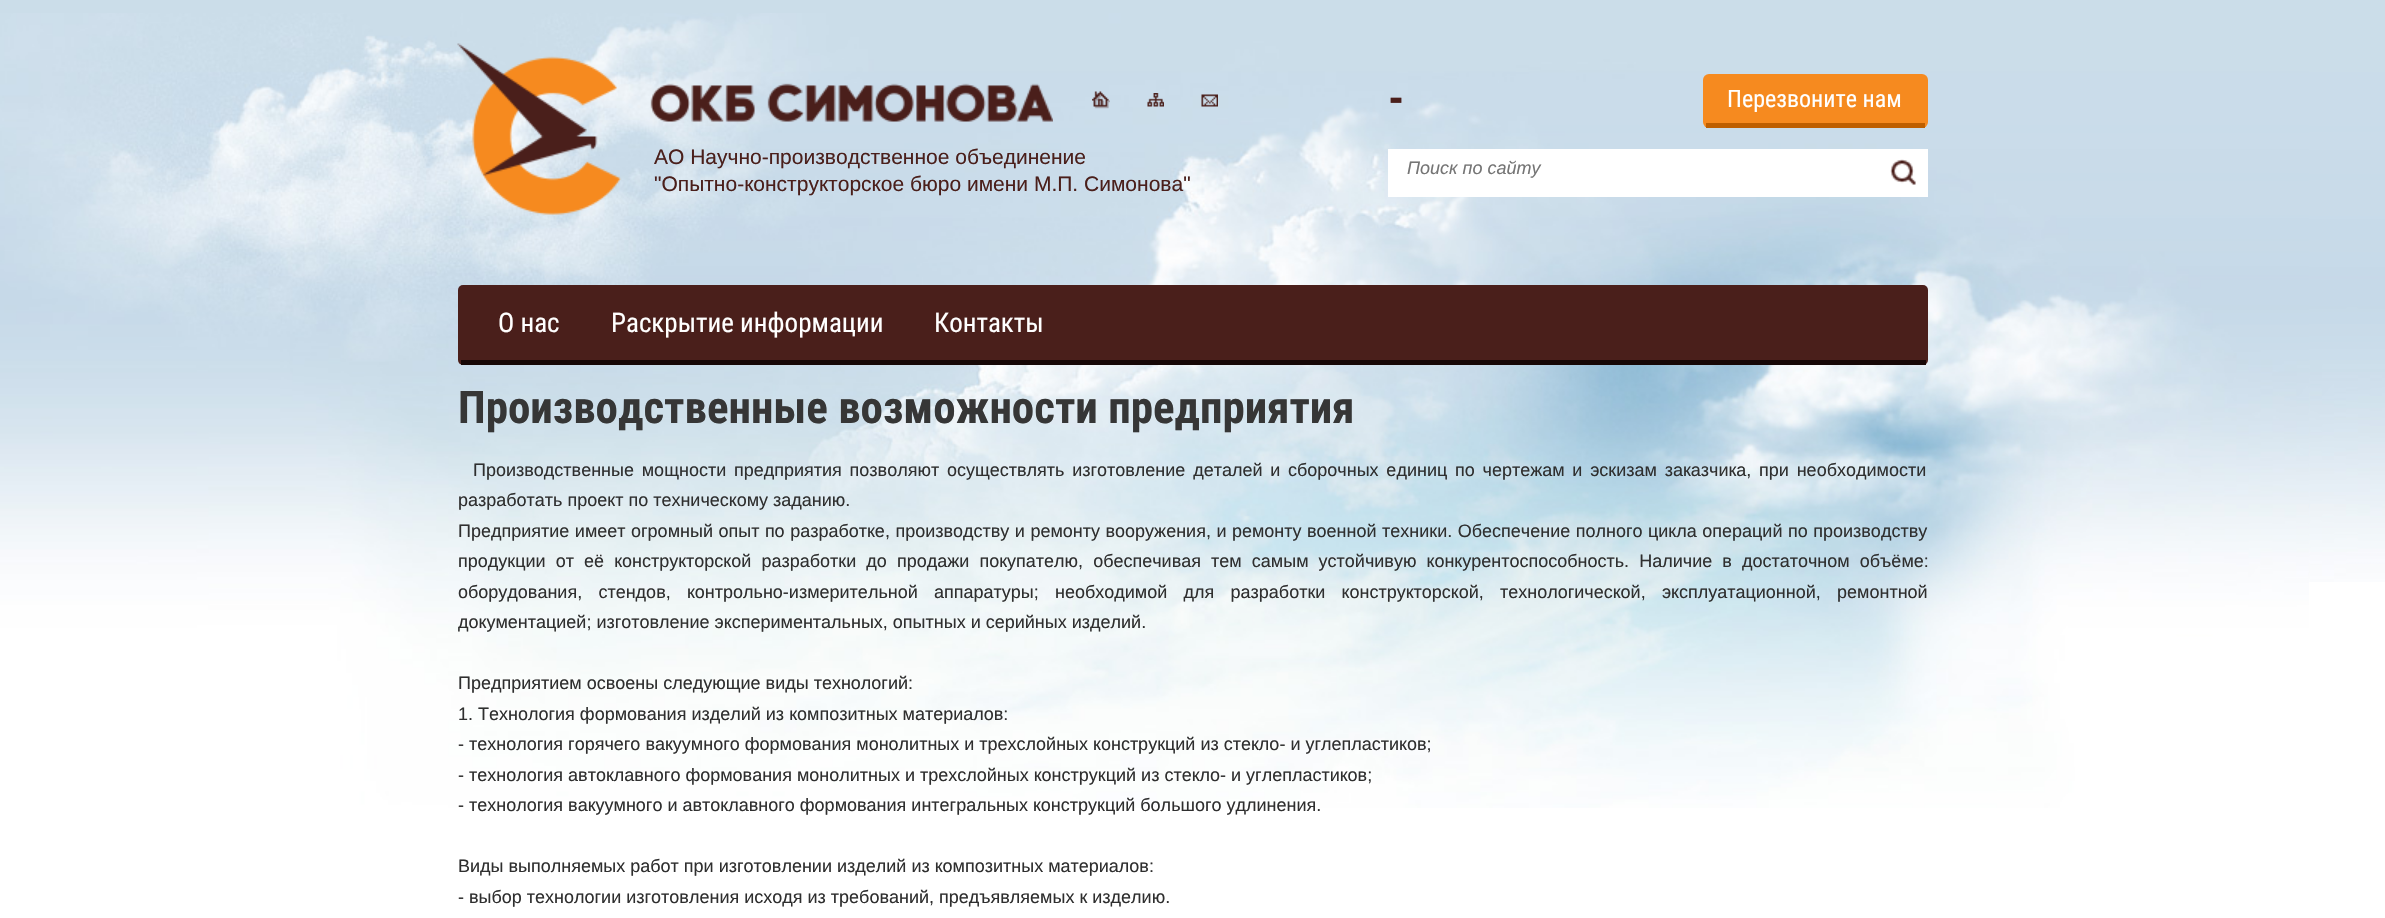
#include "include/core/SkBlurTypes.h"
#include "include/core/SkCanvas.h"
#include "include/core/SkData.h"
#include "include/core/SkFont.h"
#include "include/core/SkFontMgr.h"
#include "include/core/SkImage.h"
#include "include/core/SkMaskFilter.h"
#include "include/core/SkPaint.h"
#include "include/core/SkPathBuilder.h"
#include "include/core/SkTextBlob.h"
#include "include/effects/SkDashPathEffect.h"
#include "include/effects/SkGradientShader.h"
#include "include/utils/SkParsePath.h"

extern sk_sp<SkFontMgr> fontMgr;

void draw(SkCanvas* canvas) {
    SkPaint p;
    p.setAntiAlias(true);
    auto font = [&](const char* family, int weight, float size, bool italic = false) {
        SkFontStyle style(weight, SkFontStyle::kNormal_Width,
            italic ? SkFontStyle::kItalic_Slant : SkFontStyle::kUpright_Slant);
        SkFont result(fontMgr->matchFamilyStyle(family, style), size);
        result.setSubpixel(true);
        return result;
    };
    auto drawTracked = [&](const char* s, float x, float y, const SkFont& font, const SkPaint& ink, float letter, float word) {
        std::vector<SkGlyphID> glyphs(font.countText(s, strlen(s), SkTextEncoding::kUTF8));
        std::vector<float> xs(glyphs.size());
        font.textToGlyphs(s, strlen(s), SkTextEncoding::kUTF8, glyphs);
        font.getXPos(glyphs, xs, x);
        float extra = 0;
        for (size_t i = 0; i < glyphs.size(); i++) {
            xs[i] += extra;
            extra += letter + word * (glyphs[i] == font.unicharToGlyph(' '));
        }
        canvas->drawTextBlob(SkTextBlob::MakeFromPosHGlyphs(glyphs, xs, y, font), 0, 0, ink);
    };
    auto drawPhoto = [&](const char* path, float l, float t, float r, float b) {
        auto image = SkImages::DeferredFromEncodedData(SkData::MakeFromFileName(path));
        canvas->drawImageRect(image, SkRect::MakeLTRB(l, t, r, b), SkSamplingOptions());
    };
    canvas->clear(0xFFFFFFFF);
    drawPhoto("media/1.png", 0, 0, 2385, 582);
    drawPhoto("media/2.png", 0, 13, 2309, 808);
    drawPhoto("media/3.png", 457, 43, 1053, 215);
    drawPhoto("media/4.png", 1092, 91, 1110, 109);
    drawPhoto("media/5.png", 1147, 93, 1164, 107);
    drawPhoto("media/6.png", 1201, 94, 1218, 107);
    auto font1 = font("Roboto Condensed", 700, 45);
    p.setColor(0xFF4A1F1B);
    canvas->drawString("-", 1388, 114, font1, p);
    p.setColor(0xFFF68A1F);
    canvas->drawRoundRect(SkRect::MakeLTRB(1703, 74, 1928, 128), 6, 6, p);
    p.setColor(0xFFBE5F00);
    canvas->drawRect(SkRect::MakeLTRB(1706, 123, 1925, 128), p);
    auto font2 = font("Roboto Condensed", 400, 24);
    p.setColor(0xFFFFFFFF);
    canvas->drawString("Перезвоните нам", 1727, 107, font2, p);
    auto font3 = font("Liberation Sans", 400, 21);
    p.setColor(0xFF4A1F1B);
    canvas->drawString("АО Научно-производственное объединение", 654, 164, font3, p);
    canvas->drawString("\"Опытно-конструкторское бюро имени М.П. Симонова\"", 654, 191, font3, p);
    p.setColor(0xFFFFFFFF);
    canvas->drawRect(SkRect::MakeLTRB(1388, 149, 1928, 197), p);
    auto font4 = font("Liberation Sans", 400, 18, true);
    p.setColor(0xFF757575);
    canvas->drawString("Поиск по сайту", 1407, 174, font4, p);
    drawPhoto("media/7.png", 1890, 159, 1916, 185);
    p.setColor(0xFF4A1F1B);
    canvas->drawRoundRect(SkRect::MakeLTRB(458, 285, 1928, 365), 5, 5, p);
    p.setColor(0xFF160706);
    canvas->drawRect(SkRect::MakeLTRB(461, 360, 1926, 365), p);
    auto font5 = font("Roboto Condensed", 400, 27);
    p.setColor(0xFFFFFFFF);
    {
        const struct { const char* s; float x, y; } items[] = {
            {"О нас", 498, 332},
            {"Раскрытие информации", 611, 332},
            {"Контакты", 934, 332},
        };
        for (auto [s, x, y] : items) {
            canvas->drawString(s, x, y, font5, p);
        }
    }
    p.setColor(0xFF363636);
    canvas->drawString("Производственные возможности предприятия", 458, 423, font1, p);
    auto font6 = font("Liberation Sans", 400, 18);
    p.setColor(0xFF2F2F2F);
    drawTracked("Производственные мощности предприятия позволяют осуществлять изготовление деталей и сборочных единиц по чертежам и эскизам заказчика, при необходимости", 473, 476, font6, p, 0, 2.75f);
    canvas->drawString("разработать проект по техническому заданию.", 458, 506, font6, p);
    drawTracked("Предприятие имеет огромный опыт по разработке, производству и ремонту вооружения, и ремонту военной техники. Обеспечение полного цикла операций по производству", 458, 537, font6, p, 0, 0.5f);
    drawTracked("продукции от её конструкторской разработки до продажи покупателю, обеспечивая тем самым устойчивую конкурентоспособность. Наличие в достаточном объёме:", 458, 567, font6, p, 0, 5.1f);
    drawTracked("оборудования, стендов, контрольно-измерительной аппаратуры; необходимой для разработки конструкторской, технологической, эксплуатационной, ремонтной", 458, 598, font6, p, 0, 11.25f);
    {
        const struct { const char* s; float x, y; } items[] = {
            {"документацией; изготовление экспериментальных, опытных и серийных изделий.", 458, 628},
            {"Предприятием освоены следующие виды технологий:", 458, 689},
            {"1. Технология формования изделий из композитных материалов:", 458, 720},
            {"- технология горячего вакуумного формования монолитных и трехслойных конструкций из стекло- и углепластиков;", 458, 750},
            {"- технология автоклавного формования монолитных и трехслойных конструкций из стекло- и углепластиков;", 458, 781},
            {"- технология вакуумного и автоклавного формования интегральных конструкций большого удлинения.", 458, 811},
            {"Виды выполняемых работ при изготовлении изделий из композитных материалов:", 458, 872},
            {"- выбор технологии изготовления исходя из требований, предъявляемых к изделию.", 458, 903},
        };
        for (auto [s, x, y] : items) {
            canvas->drawString(s, x, y, font6, p);
        }
    }
}
